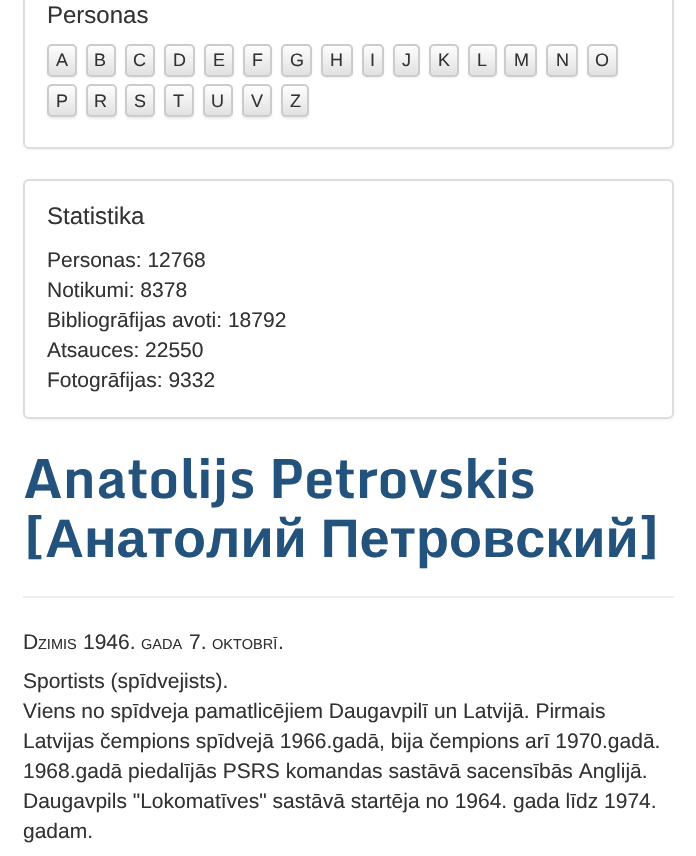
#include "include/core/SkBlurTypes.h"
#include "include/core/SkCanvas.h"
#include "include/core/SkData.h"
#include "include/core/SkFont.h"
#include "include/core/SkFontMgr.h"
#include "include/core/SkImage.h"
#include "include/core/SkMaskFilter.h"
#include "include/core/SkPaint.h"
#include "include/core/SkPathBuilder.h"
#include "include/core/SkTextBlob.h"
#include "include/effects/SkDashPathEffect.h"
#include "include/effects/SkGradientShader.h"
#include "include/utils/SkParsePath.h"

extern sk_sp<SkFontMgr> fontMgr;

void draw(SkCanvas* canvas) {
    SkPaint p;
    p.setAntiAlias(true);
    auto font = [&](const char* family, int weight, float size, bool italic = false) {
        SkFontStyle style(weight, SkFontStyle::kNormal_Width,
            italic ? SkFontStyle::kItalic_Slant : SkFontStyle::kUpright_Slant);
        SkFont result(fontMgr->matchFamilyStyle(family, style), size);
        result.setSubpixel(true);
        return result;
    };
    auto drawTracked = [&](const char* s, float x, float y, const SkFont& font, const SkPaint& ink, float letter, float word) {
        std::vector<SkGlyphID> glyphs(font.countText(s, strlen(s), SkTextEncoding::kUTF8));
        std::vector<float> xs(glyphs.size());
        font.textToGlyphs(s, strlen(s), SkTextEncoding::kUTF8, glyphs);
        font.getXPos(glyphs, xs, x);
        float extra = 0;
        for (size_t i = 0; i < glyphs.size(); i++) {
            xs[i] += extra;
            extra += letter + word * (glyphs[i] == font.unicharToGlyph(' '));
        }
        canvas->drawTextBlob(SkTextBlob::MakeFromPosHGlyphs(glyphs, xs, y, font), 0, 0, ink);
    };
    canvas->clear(0xFFFFFFFF);
    p.setColor(0x0D000000);
    p.setMaskFilter(SkMaskFilter::MakeBlur(kNormal_SkBlurStyle, 1.5f));
    canvas->drawRoundRect(SkRect::MakeLTRB(23, -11, 674, 150), 6, 6, p);
    p.setMaskFilter(nullptr);
    p.setColor(0xFFFFFFFF);
    canvas->drawRoundRect(SkRect::MakeLTRB(24, -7, 673, 148), 5, 5, p);
    p.setStyle(SkPaint::kStroke_Style);
    p.setStrokeWidth(2);
    p.setColor(0xFFDDDDDD);
    canvas->drawRoundRect(SkRect::MakeLTRB(24, -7, 673, 148), 5, 5, p);
    auto font1 = font("Liberation Sans", 400, 24);
    p.setStyle(SkPaint::kFill_Style);
    p.setColor(0xFF333333);
    canvas->drawString("Personas", 47, 23, font1, p);
    p.setColor(0x12000000);
    p.setMaskFilter(SkMaskFilter::MakeBlur(kNormal_SkBlurStyle, 1));
    canvas->drawRoundRect(SkRect::MakeLTRB(47, 45, 77, 78), 5, 5, p);
    p.setMaskFilter(nullptr);
    canvas->save();
    canvas->clipPath(SkPathBuilder().moveTo(52, 44).lineTo(72, 44).cubicTo(75, 44, 77, 46, 77, 49).lineTo(77, 72).cubicTo(77, 75, 75, 77, 72, 77).lineTo(52, 77).cubicTo(49, 77, 47, 75, 47, 72).lineTo(47, 49).cubicTo(47, 46, 49, 44, 52, 44).close().detach(), true);
    {
        const SkColor colors[] = {0xFFFFFFFF, 0xFFE0E0E0};
        const float stops[] = {0, 1};
        const SkPoint ends[] = {{62, 45}, {62, 75}};
        p.setShader(SkGradientShader::MakeLinear(ends, colors, stops, 2, SkTileMode::kClamp));
        p.setAlpha(255);
    }
    canvas->drawRect(SkRect::MakeLTRB(47, 45, 77, 75), p);
    canvas->restore();
    p.setStyle(SkPaint::kStroke_Style);
    p.setShader(nullptr);
    p.setColor(0xFFCCCCCC);
    canvas->drawRoundRect(SkRect::MakeLTRB(48, 45, 76, 76), 4, 4, p);
    auto font2 = font("Liberation Sans", 400, 18);
    p.setStyle(SkPaint::kFill_Style);
    p.setColor(0xFF333333);
    canvas->drawString("A", 56, 66, font2, p);
    p.setColor(0x12000000);
    p.setMaskFilter(SkMaskFilter::MakeBlur(kNormal_SkBlurStyle, 1));
    canvas->drawRoundRect(SkRect::MakeLTRB(86, 45, 116, 78), 5, 5, p);
    p.setMaskFilter(nullptr);
    canvas->save();
    canvas->clipPath(SkPathBuilder().moveTo(91, 44).lineTo(111, 44).cubicTo(114, 44, 116, 46, 116, 49).lineTo(116, 72).cubicTo(116, 75, 114, 77, 111, 77).lineTo(91, 77).cubicTo(88, 77, 86, 75, 86, 72).lineTo(86, 49).cubicTo(86, 46, 88, 44, 91, 44).close().detach(), true);
    {
        const SkColor colors[] = {0xFFFFFFFF, 0xFFE0E0E0};
        const float stops[] = {0, 1};
        const SkPoint ends[] = {{101, 45}, {101, 75}};
        p.setShader(SkGradientShader::MakeLinear(ends, colors, stops, 2, SkTileMode::kClamp));
        p.setAlpha(255);
    }
    canvas->drawRect(SkRect::MakeLTRB(86, 45, 116, 75), p);
    canvas->restore();
    p.setStyle(SkPaint::kStroke_Style);
    p.setShader(nullptr);
    p.setColor(0xFFCCCCCC);
    canvas->drawRoundRect(SkRect::MakeLTRB(87, 45, 115, 76), 4, 4, p);
    p.setStyle(SkPaint::kFill_Style);
    p.setColor(0xFF333333);
    canvas->drawString("B", 94, 66, font2, p);
    p.setColor(0x12000000);
    p.setMaskFilter(SkMaskFilter::MakeBlur(kNormal_SkBlurStyle, 1));
    canvas->drawRoundRect(SkRect::MakeLTRB(125, 45, 155, 78), 5, 5, p);
    p.setMaskFilter(nullptr);
    canvas->save();
    canvas->clipPath(SkPathBuilder().moveTo(130, 44).lineTo(150, 44).cubicTo(153, 44, 155, 46, 155, 49).lineTo(155, 72).cubicTo(155, 75, 153, 77, 150, 77).lineTo(130, 77).cubicTo(127, 77, 125, 75, 125, 72).lineTo(125, 49).cubicTo(125, 46, 127, 44, 130, 44).close().detach(), true);
    {
        const SkColor colors[] = {0xFFFFFFFF, 0xFFE0E0E0};
        const float stops[] = {0, 1};
        const SkPoint ends[] = {{140, 45}, {140, 75}};
        p.setShader(SkGradientShader::MakeLinear(ends, colors, stops, 2, SkTileMode::kClamp));
        p.setAlpha(255);
    }
    canvas->drawRect(SkRect::MakeLTRB(125, 45, 155, 75), p);
    canvas->restore();
    p.setStyle(SkPaint::kStroke_Style);
    p.setShader(nullptr);
    p.setColor(0xFFCCCCCC);
    canvas->drawRoundRect(SkRect::MakeLTRB(126, 45, 154, 76), 4, 4, p);
    p.setStyle(SkPaint::kFill_Style);
    p.setColor(0xFF333333);
    canvas->drawString("C", 133, 66, font2, p);
    p.setColor(0x12000000);
    p.setMaskFilter(SkMaskFilter::MakeBlur(kNormal_SkBlurStyle, 1));
    canvas->drawRoundRect(SkRect::MakeLTRB(164, 45, 195, 78), 5, 5, p);
    p.setMaskFilter(nullptr);
    canvas->save();
    canvas->clipPath(SkPathBuilder().moveTo(169, 44).lineTo(190, 44).cubicTo(193, 44, 195, 46, 195, 49).lineTo(195, 72).cubicTo(195, 75, 193, 77, 190, 77).lineTo(169, 77).cubicTo(166, 77, 164, 75, 164, 72).lineTo(164, 49).cubicTo(164, 46, 166, 44, 169, 44).close().detach(), true);
    {
        const SkColor colors[] = {0xFFFFFFFF, 0xFFE0E0E0};
        const float stops[] = {0, 1};
        const SkPoint ends[] = {{179, 45}, {179, 75}};
        p.setShader(SkGradientShader::MakeLinear(ends, colors, stops, 2, SkTileMode::kClamp));
        p.setAlpha(255);
    }
    canvas->drawRect(SkRect::MakeLTRB(164, 45, 195, 75), p);
    canvas->restore();
    p.setStyle(SkPaint::kStroke_Style);
    p.setShader(nullptr);
    p.setColor(0xFFCCCCCC);
    canvas->drawRoundRect(SkRect::MakeLTRB(165, 45, 194, 76), 4, 4, p);
    p.setStyle(SkPaint::kFill_Style);
    p.setColor(0xFF333333);
    canvas->drawString("D", 173, 66, font2, p);
    p.setColor(0x12000000);
    p.setMaskFilter(SkMaskFilter::MakeBlur(kNormal_SkBlurStyle, 1));
    canvas->drawRoundRect(SkRect::MakeLTRB(204, 45, 234, 78), 5, 5, p);
    p.setMaskFilter(nullptr);
    canvas->save();
    canvas->clipPath(SkPathBuilder().moveTo(209, 44).lineTo(229, 44).cubicTo(232, 44, 234, 46, 234, 49).lineTo(234, 72).cubicTo(234, 75, 232, 77, 229, 77).lineTo(209, 77).cubicTo(206, 77, 204, 75, 204, 72).lineTo(204, 49).cubicTo(204, 46, 206, 44, 209, 44).close().detach(), true);
    {
        const SkColor colors[] = {0xFFFFFFFF, 0xFFE0E0E0};
        const float stops[] = {0, 1};
        const SkPoint ends[] = {{219, 45}, {219, 75}};
        p.setShader(SkGradientShader::MakeLinear(ends, colors, stops, 2, SkTileMode::kClamp));
        p.setAlpha(255);
    }
    canvas->drawRect(SkRect::MakeLTRB(204, 45, 234, 75), p);
    canvas->restore();
    p.setStyle(SkPaint::kStroke_Style);
    p.setShader(nullptr);
    p.setColor(0xFFCCCCCC);
    canvas->drawRoundRect(SkRect::MakeLTRB(205, 45, 233, 76), 4, 4, p);
    p.setStyle(SkPaint::kFill_Style);
    p.setColor(0xFF333333);
    canvas->drawString("E", 213, 66, font2, p);
    p.setColor(0x12000000);
    p.setMaskFilter(SkMaskFilter::MakeBlur(kNormal_SkBlurStyle, 1));
    canvas->drawRoundRect(SkRect::MakeLTRB(243, 45, 272, 78), 5, 5, p);
    p.setMaskFilter(nullptr);
    canvas->save();
    canvas->clipPath(SkPathBuilder().moveTo(248, 44).lineTo(267, 44).cubicTo(270, 44, 272, 46, 272, 49).lineTo(272, 72).cubicTo(272, 75, 270, 77, 267, 77).lineTo(248, 77).cubicTo(245, 77, 243, 75, 243, 72).lineTo(243, 49).cubicTo(243, 46, 245, 44, 248, 44).close().detach(), true);
    {
        const SkColor colors[] = {0xFFFFFFFF, 0xFFE0E0E0};
        const float stops[] = {0, 1};
        const SkPoint ends[] = {{257, 45}, {257, 75}};
        p.setShader(SkGradientShader::MakeLinear(ends, colors, stops, 2, SkTileMode::kClamp));
        p.setAlpha(255);
    }
    canvas->drawRect(SkRect::MakeLTRB(243, 45, 272, 75), p);
    canvas->restore();
    p.setStyle(SkPaint::kStroke_Style);
    p.setShader(nullptr);
    p.setColor(0xFFCCCCCC);
    canvas->drawRoundRect(SkRect::MakeLTRB(244, 45, 271, 76), 4, 4, p);
    p.setStyle(SkPaint::kFill_Style);
    p.setColor(0xFF333333);
    canvas->drawString("F", 252, 66, font2, p);
    p.setColor(0x12000000);
    p.setMaskFilter(SkMaskFilter::MakeBlur(kNormal_SkBlurStyle, 1));
    canvas->drawRoundRect(SkRect::MakeLTRB(281, 45, 312, 78), 5, 5, p);
    p.setMaskFilter(nullptr);
    canvas->save();
    canvas->clipPath(SkPathBuilder().moveTo(286, 44).lineTo(307, 44).cubicTo(310, 44, 312, 46, 312, 49).lineTo(312, 72).cubicTo(312, 75, 310, 77, 307, 77).lineTo(286, 77).cubicTo(283, 77, 281, 75, 281, 72).lineTo(281, 49).cubicTo(281, 46, 283, 44, 286, 44).close().detach(), true);
    {
        const SkColor colors[] = {0xFFFFFFFF, 0xFFE0E0E0};
        const float stops[] = {0, 1};
        const SkPoint ends[] = {{296, 45}, {296, 75}};
        p.setShader(SkGradientShader::MakeLinear(ends, colors, stops, 2, SkTileMode::kClamp));
        p.setAlpha(255);
    }
    canvas->drawRect(SkRect::MakeLTRB(281, 45, 312, 75), p);
    canvas->restore();
    p.setStyle(SkPaint::kStroke_Style);
    p.setShader(nullptr);
    p.setColor(0xFFCCCCCC);
    canvas->drawRoundRect(SkRect::MakeLTRB(282, 45, 311, 76), 4, 4, p);
    p.setStyle(SkPaint::kFill_Style);
    p.setColor(0xFF333333);
    canvas->drawString("G", 290, 66, font2, p);
    p.setColor(0x12000000);
    p.setMaskFilter(SkMaskFilter::MakeBlur(kNormal_SkBlurStyle, 1));
    canvas->drawRoundRect(SkRect::MakeLTRB(321, 45, 353, 78), 5, 5, p);
    p.setMaskFilter(nullptr);
    canvas->save();
    canvas->clipPath(SkPathBuilder().moveTo(326, 44).lineTo(348, 44).cubicTo(351, 44, 353, 46, 353, 49).lineTo(353, 72).cubicTo(353, 75, 351, 77, 348, 77).lineTo(326, 77).cubicTo(323, 77, 321, 75, 321, 72).lineTo(321, 49).cubicTo(321, 46, 323, 44, 326, 44).close().detach(), true);
    {
        const SkColor colors[] = {0xFFFFFFFF, 0xFFE0E0E0};
        const float stops[] = {0, 1};
        const SkPoint ends[] = {{337, 45}, {337, 75}};
        p.setShader(SkGradientShader::MakeLinear(ends, colors, stops, 2, SkTileMode::kClamp));
        p.setAlpha(255);
    }
    canvas->drawRect(SkRect::MakeLTRB(321, 45, 353, 75), p);
    canvas->restore();
    p.setStyle(SkPaint::kStroke_Style);
    p.setShader(nullptr);
    p.setColor(0xFFCCCCCC);
    canvas->drawRoundRect(SkRect::MakeLTRB(322, 45, 352, 76), 4, 4, p);
    p.setStyle(SkPaint::kFill_Style);
    p.setColor(0xFF333333);
    canvas->drawString("H", 330, 66, font2, p);
    p.setColor(0x12000000);
    p.setMaskFilter(SkMaskFilter::MakeBlur(kNormal_SkBlurStyle, 1));
    canvas->drawRoundRect(SkRect::MakeLTRB(362, 45, 384, 78), 5, 5, p);
    p.setMaskFilter(nullptr);
    canvas->save();
    canvas->clipPath(SkPathBuilder().moveTo(367, 44).lineTo(379, 44).cubicTo(382, 44, 384, 46, 384, 49).lineTo(384, 72).cubicTo(384, 75, 382, 77, 379, 77).lineTo(367, 77).cubicTo(364, 77, 362, 75, 362, 72).lineTo(362, 49).cubicTo(362, 46, 364, 44, 367, 44).close().detach(), true);
    {
        const SkColor colors[] = {0xFFFFFFFF, 0xFFE0E0E0};
        const float stops[] = {0, 1};
        const SkPoint ends[] = {{373, 45}, {373, 75}};
        p.setShader(SkGradientShader::MakeLinear(ends, colors, stops, 2, SkTileMode::kClamp));
        p.setAlpha(255);
    }
    canvas->drawRect(SkRect::MakeLTRB(362, 45, 384, 75), p);
    canvas->restore();
    p.setStyle(SkPaint::kStroke_Style);
    p.setShader(nullptr);
    p.setColor(0xFFCCCCCC);
    canvas->drawRoundRect(SkRect::MakeLTRB(363, 45, 383, 76), 4, 4, p);
    p.setStyle(SkPaint::kFill_Style);
    p.setColor(0xFF333333);
    canvas->drawString("I", 370, 66, font2, p);
    p.setColor(0x12000000);
    p.setMaskFilter(SkMaskFilter::MakeBlur(kNormal_SkBlurStyle, 1));
    canvas->drawRoundRect(SkRect::MakeLTRB(393, 45, 420, 78), 5, 5, p);
    p.setMaskFilter(nullptr);
    canvas->save();
    canvas->clipPath(SkPathBuilder().moveTo(398, 44).lineTo(415, 44).cubicTo(418, 44, 420, 46, 420, 49).lineTo(420, 72).cubicTo(420, 75, 418, 77, 415, 77).lineTo(398, 77).cubicTo(395, 77, 393, 75, 393, 72).lineTo(393, 49).cubicTo(393, 46, 395, 44, 398, 44).close().detach(), true);
    {
        const SkColor colors[] = {0xFFFFFFFF, 0xFFE0E0E0};
        const float stops[] = {0, 1};
        const SkPoint ends[] = {{407, 45}, {407, 75}};
        p.setShader(SkGradientShader::MakeLinear(ends, colors, stops, 2, SkTileMode::kClamp));
        p.setAlpha(255);
    }
    canvas->drawRect(SkRect::MakeLTRB(393, 45, 420, 75), p);
    canvas->restore();
    p.setStyle(SkPaint::kStroke_Style);
    p.setShader(nullptr);
    p.setColor(0xFFCCCCCC);
    canvas->drawRoundRect(SkRect::MakeLTRB(394, 45, 419, 76), 4, 4, p);
    p.setStyle(SkPaint::kFill_Style);
    p.setColor(0xFF333333);
    canvas->drawString("J", 402, 66, font2, p);
    p.setColor(0x12000000);
    p.setMaskFilter(SkMaskFilter::MakeBlur(kNormal_SkBlurStyle, 1));
    canvas->drawRoundRect(SkRect::MakeLTRB(429, 45, 459, 78), 5, 5, p);
    p.setMaskFilter(nullptr);
    canvas->save();
    canvas->clipPath(SkPathBuilder().moveTo(434, 44).lineTo(454, 44).cubicTo(457, 44, 459, 46, 459, 49).lineTo(459, 72).cubicTo(459, 75, 457, 77, 454, 77).lineTo(434, 77).cubicTo(431, 77, 429, 75, 429, 72).lineTo(429, 49).cubicTo(429, 46, 431, 44, 434, 44).close().detach(), true);
    {
        const SkColor colors[] = {0xFFFFFFFF, 0xFFE0E0E0};
        const float stops[] = {0, 1};
        const SkPoint ends[] = {{444, 45}, {444, 75}};
        p.setShader(SkGradientShader::MakeLinear(ends, colors, stops, 2, SkTileMode::kClamp));
        p.setAlpha(255);
    }
    canvas->drawRect(SkRect::MakeLTRB(429, 45, 459, 75), p);
    canvas->restore();
    p.setStyle(SkPaint::kStroke_Style);
    p.setShader(nullptr);
    p.setColor(0xFFCCCCCC);
    canvas->drawRoundRect(SkRect::MakeLTRB(430, 45, 458, 76), 4, 4, p);
    p.setStyle(SkPaint::kFill_Style);
    p.setColor(0xFF333333);
    canvas->drawString("K", 438, 66, font2, p);
    p.setColor(0x12000000);
    p.setMaskFilter(SkMaskFilter::MakeBlur(kNormal_SkBlurStyle, 1));
    canvas->drawRoundRect(SkRect::MakeLTRB(468, 45, 497, 78), 5, 5, p);
    p.setMaskFilter(nullptr);
    canvas->save();
    canvas->clipPath(SkPathBuilder().moveTo(473, 44).lineTo(492, 44).cubicTo(495, 44, 497, 46, 497, 49).lineTo(497, 72).cubicTo(497, 75, 495, 77, 492, 77).lineTo(473, 77).cubicTo(470, 77, 468, 75, 468, 72).lineTo(468, 49).cubicTo(468, 46, 470, 44, 473, 44).close().detach(), true);
    {
        const SkColor colors[] = {0xFFFFFFFF, 0xFFE0E0E0};
        const float stops[] = {0, 1};
        const SkPoint ends[] = {{482, 45}, {482, 75}};
        p.setShader(SkGradientShader::MakeLinear(ends, colors, stops, 2, SkTileMode::kClamp));
        p.setAlpha(255);
    }
    canvas->drawRect(SkRect::MakeLTRB(468, 45, 497, 75), p);
    canvas->restore();
    p.setStyle(SkPaint::kStroke_Style);
    p.setShader(nullptr);
    p.setColor(0xFFCCCCCC);
    canvas->drawRoundRect(SkRect::MakeLTRB(469, 45, 496, 76), 4, 4, p);
    p.setStyle(SkPaint::kFill_Style);
    p.setColor(0xFF333333);
    canvas->drawString("L", 477, 66, font2, p);
    p.setColor(0x12000000);
    p.setMaskFilter(SkMaskFilter::MakeBlur(kNormal_SkBlurStyle, 1));
    canvas->drawRoundRect(SkRect::MakeLTRB(504, 45, 537, 78), 5, 5, p);
    p.setMaskFilter(nullptr);
    canvas->save();
    canvas->clipPath(SkPathBuilder().moveTo(509, 44).lineTo(532, 44).cubicTo(535, 44, 537, 46, 537, 49).lineTo(537, 72).cubicTo(537, 75, 535, 77, 532, 77).lineTo(509, 77).cubicTo(506, 77, 504, 75, 504, 72).lineTo(504, 49).cubicTo(504, 46, 506, 44, 509, 44).close().detach(), true);
    {
        const SkColor colors[] = {0xFFFFFFFF, 0xFFE0E0E0};
        const float stops[] = {0, 1};
        const SkPoint ends[] = {{521, 45}, {521, 75}};
        p.setShader(SkGradientShader::MakeLinear(ends, colors, stops, 2, SkTileMode::kClamp));
        p.setAlpha(255);
    }
    canvas->drawRect(SkRect::MakeLTRB(504, 45, 537, 75), p);
    canvas->restore();
    p.setStyle(SkPaint::kStroke_Style);
    p.setShader(nullptr);
    p.setColor(0xFFCCCCCC);
    canvas->drawRoundRect(SkRect::MakeLTRB(505, 45, 536, 76), 4, 4, p);
    p.setStyle(SkPaint::kFill_Style);
    p.setColor(0xFF333333);
    canvas->drawString("M", 514, 66, font2, p);
    p.setColor(0x12000000);
    p.setMaskFilter(SkMaskFilter::MakeBlur(kNormal_SkBlurStyle, 1));
    canvas->drawRoundRect(SkRect::MakeLTRB(546, 45, 578, 78), 5, 5, p);
    p.setMaskFilter(nullptr);
    canvas->save();
    canvas->clipPath(SkPathBuilder().moveTo(551, 44).lineTo(573, 44).cubicTo(576, 44, 578, 46, 578, 49).lineTo(578, 72).cubicTo(578, 75, 576, 77, 573, 77).lineTo(551, 77).cubicTo(548, 77, 546, 75, 546, 72).lineTo(546, 49).cubicTo(546, 46, 548, 44, 551, 44).close().detach(), true);
    {
        const SkColor colors[] = {0xFFFFFFFF, 0xFFE0E0E0};
        const float stops[] = {0, 1};
        const SkPoint ends[] = {{562, 45}, {562, 75}};
        p.setShader(SkGradientShader::MakeLinear(ends, colors, stops, 2, SkTileMode::kClamp));
        p.setAlpha(255);
    }
    canvas->drawRect(SkRect::MakeLTRB(546, 45, 578, 75), p);
    canvas->restore();
    p.setStyle(SkPaint::kStroke_Style);
    p.setShader(nullptr);
    p.setColor(0xFFCCCCCC);
    canvas->drawRoundRect(SkRect::MakeLTRB(547, 45, 577, 76), 4, 4, p);
    p.setStyle(SkPaint::kFill_Style);
    p.setColor(0xFF333333);
    canvas->drawString("N", 556, 66, font2, p);
    p.setColor(0x12000000);
    p.setMaskFilter(SkMaskFilter::MakeBlur(kNormal_SkBlurStyle, 1));
    canvas->drawRoundRect(SkRect::MakeLTRB(587, 45, 618, 78), 5, 5, p);
    p.setMaskFilter(nullptr);
    canvas->save();
    canvas->clipPath(SkPathBuilder().moveTo(592, 44).lineTo(613, 44).cubicTo(616, 44, 618, 46, 618, 49).lineTo(618, 72).cubicTo(618, 75, 616, 77, 613, 77).lineTo(592, 77).cubicTo(589, 77, 587, 75, 587, 72).lineTo(587, 49).cubicTo(587, 46, 589, 44, 592, 44).close().detach(), true);
    {
        const SkColor colors[] = {0xFFFFFFFF, 0xFFE0E0E0};
        const float stops[] = {0, 1};
        const SkPoint ends[] = {{602, 45}, {602, 75}};
        p.setShader(SkGradientShader::MakeLinear(ends, colors, stops, 2, SkTileMode::kClamp));
        p.setAlpha(255);
    }
    canvas->drawRect(SkRect::MakeLTRB(587, 45, 618, 75), p);
    canvas->restore();
    p.setStyle(SkPaint::kStroke_Style);
    p.setShader(nullptr);
    p.setColor(0xFFCCCCCC);
    canvas->drawRoundRect(SkRect::MakeLTRB(588, 45, 617, 76), 4, 4, p);
    p.setStyle(SkPaint::kFill_Style);
    p.setColor(0xFF333333);
    canvas->drawString("O", 595, 66, font2, p);
    p.setColor(0x12000000);
    p.setMaskFilter(SkMaskFilter::MakeBlur(kNormal_SkBlurStyle, 1));
    canvas->drawRoundRect(SkRect::MakeLTRB(47, 86, 77, 119), 5, 5, p);
    p.setMaskFilter(nullptr);
    canvas->save();
    canvas->clipPath(SkPathBuilder().moveTo(52, 84).lineTo(72, 84).cubicTo(75, 84, 77, 86, 77, 89).lineTo(77, 112).cubicTo(77, 115, 75, 117, 72, 117).lineTo(52, 117).cubicTo(49, 117, 47, 115, 47, 112).lineTo(47, 89).cubicTo(47, 86, 49, 84, 52, 84).close().detach(), true);
    {
        const SkColor colors[] = {0xFFFFFFFF, 0xFFE0E0E0};
        const float stops[] = {0, 1};
        const SkPoint ends[] = {{62, 86}, {62, 116}};
        p.setShader(SkGradientShader::MakeLinear(ends, colors, stops, 2, SkTileMode::kClamp));
        p.setAlpha(255);
    }
    canvas->drawRect(SkRect::MakeLTRB(47, 86, 77, 116), p);
    canvas->restore();
    p.setStyle(SkPaint::kStroke_Style);
    p.setShader(nullptr);
    p.setColor(0xFFCCCCCC);
    canvas->drawRoundRect(SkRect::MakeLTRB(48, 85, 76, 116), 4, 4, p);
    p.setStyle(SkPaint::kFill_Style);
    p.setColor(0xFF333333);
    canvas->drawString("P", 56, 107, font2, p);
    p.setColor(0x12000000);
    p.setMaskFilter(SkMaskFilter::MakeBlur(kNormal_SkBlurStyle, 1));
    canvas->drawRoundRect(SkRect::MakeLTRB(86, 86, 117, 119), 5, 5, p);
    p.setMaskFilter(nullptr);
    canvas->save();
    canvas->clipPath(SkPathBuilder().moveTo(91, 84).lineTo(112, 84).cubicTo(115, 84, 117, 86, 117, 89).lineTo(117, 112).cubicTo(117, 115, 115, 117, 112, 117).lineTo(91, 117).cubicTo(88, 117, 86, 115, 86, 112).lineTo(86, 89).cubicTo(86, 86, 88, 84, 91, 84).close().detach(), true);
    {
        const SkColor colors[] = {0xFFFFFFFF, 0xFFE0E0E0};
        const float stops[] = {0, 1};
        const SkPoint ends[] = {{101, 86}, {101, 116}};
        p.setShader(SkGradientShader::MakeLinear(ends, colors, stops, 2, SkTileMode::kClamp));
        p.setAlpha(255);
    }
    canvas->drawRect(SkRect::MakeLTRB(86, 86, 117, 116), p);
    canvas->restore();
    p.setStyle(SkPaint::kStroke_Style);
    p.setShader(nullptr);
    p.setColor(0xFFCCCCCC);
    canvas->drawRoundRect(SkRect::MakeLTRB(87, 85, 116, 116), 4, 4, p);
    p.setStyle(SkPaint::kFill_Style);
    p.setColor(0xFF333333);
    canvas->drawString("R", 94, 107, font2, p);
    p.setColor(0x12000000);
    p.setMaskFilter(SkMaskFilter::MakeBlur(kNormal_SkBlurStyle, 1));
    canvas->drawRoundRect(SkRect::MakeLTRB(125, 86, 155, 119), 5, 5, p);
    p.setMaskFilter(nullptr);
    canvas->save();
    canvas->clipPath(SkPathBuilder().moveTo(130, 84).lineTo(150, 84).cubicTo(153, 84, 155, 86, 155, 89).lineTo(155, 112).cubicTo(155, 115, 153, 117, 150, 117).lineTo(130, 117).cubicTo(127, 117, 125, 115, 125, 112).lineTo(125, 89).cubicTo(125, 86, 127, 84, 130, 84).close().detach(), true);
    {
        const SkColor colors[] = {0xFFFFFFFF, 0xFFE0E0E0};
        const float stops[] = {0, 1};
        const SkPoint ends[] = {{140, 86}, {140, 116}};
        p.setShader(SkGradientShader::MakeLinear(ends, colors, stops, 2, SkTileMode::kClamp));
        p.setAlpha(255);
    }
    canvas->drawRect(SkRect::MakeLTRB(125, 86, 155, 116), p);
    canvas->restore();
    p.setStyle(SkPaint::kStroke_Style);
    p.setShader(nullptr);
    p.setColor(0xFFCCCCCC);
    canvas->drawRoundRect(SkRect::MakeLTRB(126, 85, 154, 116), 4, 4, p);
    p.setStyle(SkPaint::kFill_Style);
    p.setColor(0xFF333333);
    canvas->drawString("S", 134, 107, font2, p);
    p.setColor(0x12000000);
    p.setMaskFilter(SkMaskFilter::MakeBlur(kNormal_SkBlurStyle, 1));
    canvas->drawRoundRect(SkRect::MakeLTRB(164, 86, 194, 119), 5, 5, p);
    p.setMaskFilter(nullptr);
    canvas->save();
    canvas->clipPath(SkPathBuilder().moveTo(169, 84).lineTo(189, 84).cubicTo(192, 84, 194, 86, 194, 89).lineTo(194, 112).cubicTo(194, 115, 192, 117, 189, 117).lineTo(169, 117).cubicTo(166, 117, 164, 115, 164, 112).lineTo(164, 89).cubicTo(164, 86, 166, 84, 169, 84).close().detach(), true);
    {
        const SkColor colors[] = {0xFFFFFFFF, 0xFFE0E0E0};
        const float stops[] = {0, 1};
        const SkPoint ends[] = {{179, 86}, {179, 116}};
        p.setShader(SkGradientShader::MakeLinear(ends, colors, stops, 2, SkTileMode::kClamp));
        p.setAlpha(255);
    }
    canvas->drawRect(SkRect::MakeLTRB(164, 86, 194, 116), p);
    canvas->restore();
    p.setStyle(SkPaint::kStroke_Style);
    p.setShader(nullptr);
    p.setColor(0xFFCCCCCC);
    canvas->drawRoundRect(SkRect::MakeLTRB(165, 85, 193, 116), 4, 4, p);
    p.setStyle(SkPaint::kFill_Style);
    p.setColor(0xFF333333);
    canvas->drawString("T", 173, 107, font2, p);
    p.setColor(0x12000000);
    p.setMaskFilter(SkMaskFilter::MakeBlur(kNormal_SkBlurStyle, 1));
    canvas->drawRoundRect(SkRect::MakeLTRB(203, 86, 233, 119), 5, 5, p);
    p.setMaskFilter(nullptr);
    canvas->save();
    canvas->clipPath(SkPathBuilder().moveTo(208, 84).lineTo(228, 84).cubicTo(231, 84, 233, 86, 233, 89).lineTo(233, 112).cubicTo(233, 115, 231, 117, 228, 117).lineTo(208, 117).cubicTo(205, 117, 203, 115, 203, 112).lineTo(203, 89).cubicTo(203, 86, 205, 84, 208, 84).close().detach(), true);
    {
        const SkColor colors[] = {0xFFFFFFFF, 0xFFE0E0E0};
        const float stops[] = {0, 1};
        const SkPoint ends[] = {{218, 86}, {218, 116}};
        p.setShader(SkGradientShader::MakeLinear(ends, colors, stops, 2, SkTileMode::kClamp));
        p.setAlpha(255);
    }
    canvas->drawRect(SkRect::MakeLTRB(203, 86, 233, 116), p);
    canvas->restore();
    p.setStyle(SkPaint::kStroke_Style);
    p.setShader(nullptr);
    p.setColor(0xFFCCCCCC);
    canvas->drawRoundRect(SkRect::MakeLTRB(204, 85, 232, 116), 4, 4, p);
    p.setStyle(SkPaint::kFill_Style);
    p.setColor(0xFF333333);
    canvas->drawString("U", 211, 107, font2, p);
    p.setColor(0x12000000);
    p.setMaskFilter(SkMaskFilter::MakeBlur(kNormal_SkBlurStyle, 1));
    canvas->drawRoundRect(SkRect::MakeLTRB(242, 86, 272, 119), 5, 5, p);
    p.setMaskFilter(nullptr);
    canvas->save();
    canvas->clipPath(SkPathBuilder().moveTo(247, 84).lineTo(267, 84).cubicTo(270, 84, 272, 86, 272, 89).lineTo(272, 112).cubicTo(272, 115, 270, 117, 267, 117).lineTo(247, 117).cubicTo(244, 117, 242, 115, 242, 112).lineTo(242, 89).cubicTo(242, 86, 244, 84, 247, 84).close().detach(), true);
    {
        const SkColor colors[] = {0xFFFFFFFF, 0xFFE0E0E0};
        const float stops[] = {0, 1};
        const SkPoint ends[] = {{257, 86}, {257, 116}};
        p.setShader(SkGradientShader::MakeLinear(ends, colors, stops, 2, SkTileMode::kClamp));
        p.setAlpha(255);
    }
    canvas->drawRect(SkRect::MakeLTRB(242, 86, 272, 116), p);
    canvas->restore();
    p.setStyle(SkPaint::kStroke_Style);
    p.setShader(nullptr);
    p.setColor(0xFFCCCCCC);
    canvas->drawRoundRect(SkRect::MakeLTRB(243, 85, 271, 116), 4, 4, p);
    p.setStyle(SkPaint::kFill_Style);
    p.setColor(0xFF333333);
    canvas->drawString("V", 251, 107, font2, p);
    p.setColor(0x12000000);
    p.setMaskFilter(SkMaskFilter::MakeBlur(kNormal_SkBlurStyle, 1));
    canvas->drawRoundRect(SkRect::MakeLTRB(281, 86, 309, 119), 5, 5, p);
    p.setMaskFilter(nullptr);
    canvas->save();
    canvas->clipPath(SkPathBuilder().moveTo(286, 84).lineTo(304, 84).cubicTo(307, 84, 309, 86, 309, 89).lineTo(309, 112).cubicTo(309, 115, 307, 117, 304, 117).lineTo(286, 117).cubicTo(283, 117, 281, 115, 281, 112).lineTo(281, 89).cubicTo(281, 86, 283, 84, 286, 84).close().detach(), true);
    {
        const SkColor colors[] = {0xFFFFFFFF, 0xFFE0E0E0};
        const float stops[] = {0, 1};
        const SkPoint ends[] = {{295, 86}, {295, 116}};
        p.setShader(SkGradientShader::MakeLinear(ends, colors, stops, 2, SkTileMode::kClamp));
        p.setAlpha(255);
    }
    canvas->drawRect(SkRect::MakeLTRB(281, 86, 309, 116), p);
    canvas->restore();
    p.setStyle(SkPaint::kStroke_Style);
    p.setShader(nullptr);
    p.setColor(0xFFCCCCCC);
    canvas->drawRoundRect(SkRect::MakeLTRB(282, 85, 308, 116), 4, 4, p);
    p.setStyle(SkPaint::kFill_Style);
    p.setColor(0xFF333333);
    canvas->drawString("Z", 290, 107, font2, p);
    p.setColor(0x0D000000);
    p.setMaskFilter(SkMaskFilter::MakeBlur(kNormal_SkBlurStyle, 1.5f));
    canvas->drawRoundRect(SkRect::MakeLTRB(23, 180, 674, 420), 6, 6, p);
    p.setMaskFilter(nullptr);
    p.setColor(0xFFFFFFFF);
    canvas->drawRoundRect(SkRect::MakeLTRB(24, 180, 673, 418), 5, 5, p);
    p.setStyle(SkPaint::kStroke_Style);
    p.setColor(0xFFDDDDDD);
    canvas->drawRoundRect(SkRect::MakeLTRB(24, 180, 673, 418), 5, 5, p);
    p.setStyle(SkPaint::kFill_Style);
    p.setColor(0xFF333333);
    canvas->drawString("Statistika", 47, 224, font1, p);
    auto font3 = font("Liberation Sans", 400, 21);
    {
        const struct { const char* s; float x, y; } items[] = {
            {"Personas: 12768", 47, 267},
            {"Notikumi: 8378", 47, 297},
            {"Bibliogrāfijas avoti: 18792", 47, 327},
            {"Atsauces: 22550", 47, 357},
            {"Fotogrāfijas: 9332", 47, 387},
        };
        for (auto [s, x, y] : items) {
            canvas->drawString(s, x, y, font3, p);
        }
    }
    p.setColor(0xFFEEEEEE);
    canvas->drawRect(SkRect::MakeLTRB(23, 596, 674, 598), p);
    auto font4 = font("Monda", 700, 54);
    p.setColor(0xFF23527C);
    canvas->drawString("Anatolijs Petrovskis", 23, 498, font4, p);
    canvas->drawString("[", 23, 557, font4, p);
    auto font5 = font("Liberation Sans", 700, 54);
    drawTracked("Анатолий Петровский", 45, 557, font5, p, 0, -1);
    canvas->drawString("]", 638, 557, font4, p);
    p.setColor(0xFF333333);
    canvas->drawString("D", 23, 649, font3, p);
    auto font6 = font("Liberation Sans", 400, 14.5f);
    canvas->drawString("ZIMIS", 38, 649, font6, p);
    canvas->drawString("1946.", 83, 649, font3, p);
    canvas->drawString("GADA", 141, 649, font6, p);
    canvas->drawString("7.", 189, 649, font3, p);
    canvas->drawString("OKTOBRĪ", 212, 649, font6, p);
    {
        const struct { const char* s; float x, y; } items[] = {
            {".", 278, 649},
            {"Sportists (spīdvejists).", 23, 688},
            {"Viens no spīdveja pamatlicējiem Daugavpilī un Latvijā. Pirmais", 23, 718},
            {"Latvijas čempions spīdvejā 1966.gadā, bija čempions arī 1970.gadā.", 23, 748},
            {"1968.gadā piedalījās PSRS komandas sastāvā sacensībās Anglijā.", 23, 778},
            {"Daugavpils \"Lokomatīves\" sastāvā startēja no 1964. gada līdz 1974.", 23, 808},
            {"gadam.", 23, 838},
        };
        for (auto [s, x, y] : items) {
            canvas->drawString(s, x, y, font3, p);
        }
    }
}
